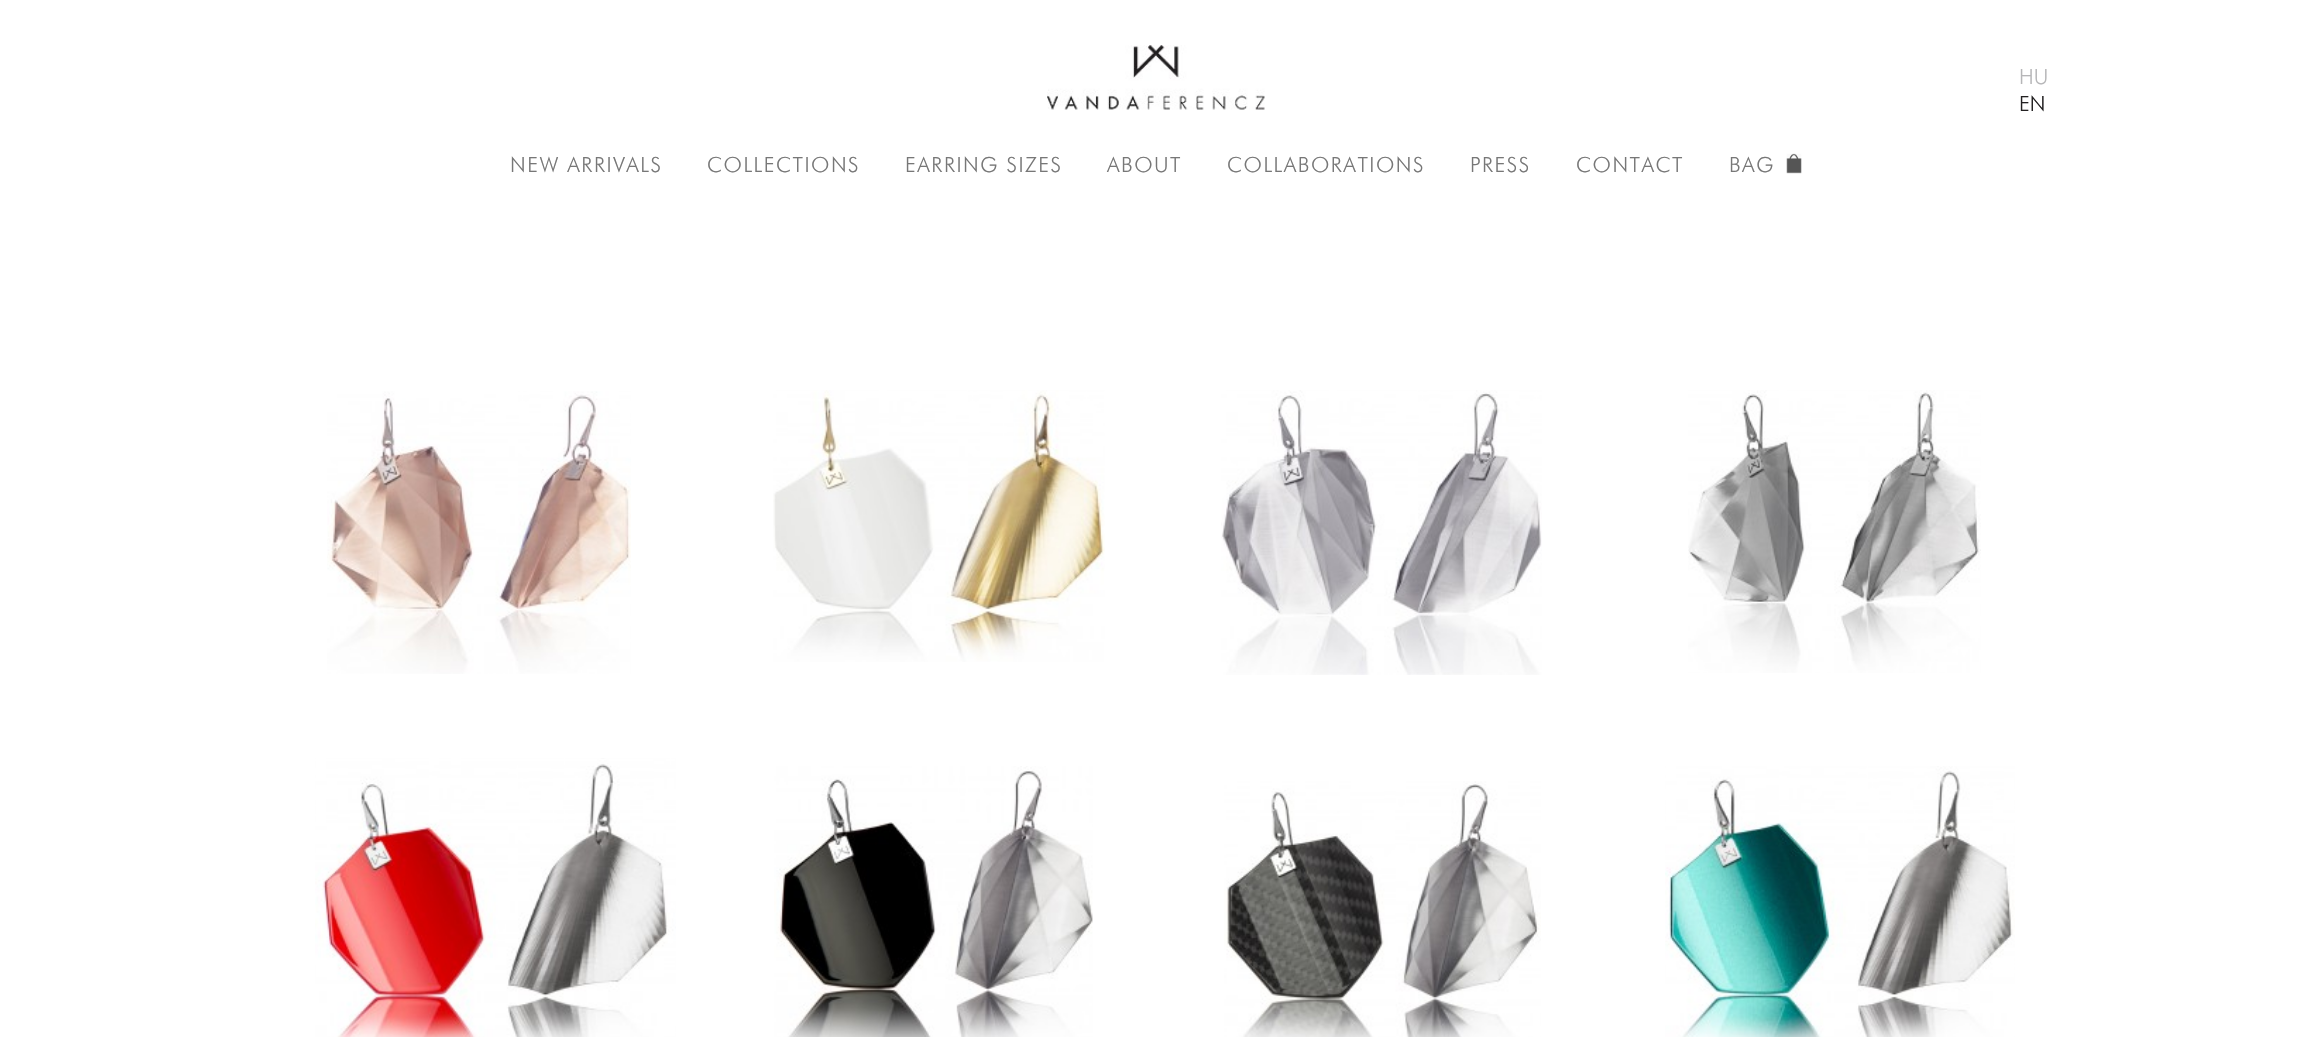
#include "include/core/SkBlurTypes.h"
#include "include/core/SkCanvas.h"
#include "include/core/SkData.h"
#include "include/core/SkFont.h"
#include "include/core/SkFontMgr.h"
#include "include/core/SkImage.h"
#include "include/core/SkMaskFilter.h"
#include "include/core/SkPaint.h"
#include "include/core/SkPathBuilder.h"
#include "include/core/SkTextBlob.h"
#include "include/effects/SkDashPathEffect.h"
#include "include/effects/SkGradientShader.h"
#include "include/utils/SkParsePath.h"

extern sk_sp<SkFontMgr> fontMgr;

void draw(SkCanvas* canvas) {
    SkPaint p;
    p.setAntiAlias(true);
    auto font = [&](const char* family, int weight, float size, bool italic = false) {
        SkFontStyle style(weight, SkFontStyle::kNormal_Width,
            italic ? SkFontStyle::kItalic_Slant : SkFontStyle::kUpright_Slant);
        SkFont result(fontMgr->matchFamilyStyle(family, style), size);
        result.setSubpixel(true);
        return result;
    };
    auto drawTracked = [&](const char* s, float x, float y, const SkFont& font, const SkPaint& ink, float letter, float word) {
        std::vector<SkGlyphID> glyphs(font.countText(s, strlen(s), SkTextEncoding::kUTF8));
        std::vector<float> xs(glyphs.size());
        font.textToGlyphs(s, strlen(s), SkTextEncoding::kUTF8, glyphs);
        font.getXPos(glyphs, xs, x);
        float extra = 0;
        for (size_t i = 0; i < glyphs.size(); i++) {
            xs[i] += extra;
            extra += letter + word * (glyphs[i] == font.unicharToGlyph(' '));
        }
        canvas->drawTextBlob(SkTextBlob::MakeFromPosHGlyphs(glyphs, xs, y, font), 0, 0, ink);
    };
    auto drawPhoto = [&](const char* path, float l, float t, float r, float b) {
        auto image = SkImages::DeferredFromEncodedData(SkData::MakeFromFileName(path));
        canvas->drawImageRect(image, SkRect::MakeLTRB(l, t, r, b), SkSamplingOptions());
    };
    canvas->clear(0xFFFFFFFF);
    drawPhoto("media/1.png", 1047, 45, 1265, 110);
    auto font1 = font("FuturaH", 300, 21);
    p.setColor(0xFFB6B6B8);
    canvas->drawString("HU", 2019, 84, font1, p);
    p.setColor(0xFF232122);
    canvas->drawString("EN", 2019, 111, font1, p);
    p.setColor(0xFF777777);
    {
        const struct { const char* s; float x, y; } items[] = {
            {"NEW ARRIVALS", 510, 172},
            {"COLLECTIONS", 707, 172},
            {"EARRING SIZES", 905, 172},
            {"ABOUT", 1107, 172},
            {"COLLABORATIONS", 1227, 172},
            {"PRESS", 1470, 172},
            {"CONTACT", 1576, 172},
            {"BAG", 1729, 172},
        };
        for (auto [s, x, y] : items) {
            drawTracked(s, x, y, font1, p, 1.5f, 0);
        }
    }
    drawPhoto("media/2.png", 1786, 153, 1802, 174);
    drawPhoto("media/3.png", 327, 391, 631, 674);
    drawPhoto("media/4.png", 773, 390, 1105, 662);
    drawPhoto("media/5.png", 1221, 390, 1542, 675);
    drawPhoto("media/6.png", 1688, 390, 1981, 673);
    drawPhoto("media/7.png", 315, 758, 676, 1037);
    drawPhoto("media/8.png", 774, 766, 1093, 1037);
    drawPhoto("media/9.png", 1224, 781, 1541, 1037);
    drawPhoto("media/10.png", 1665, 766, 2015, 1037);
}
